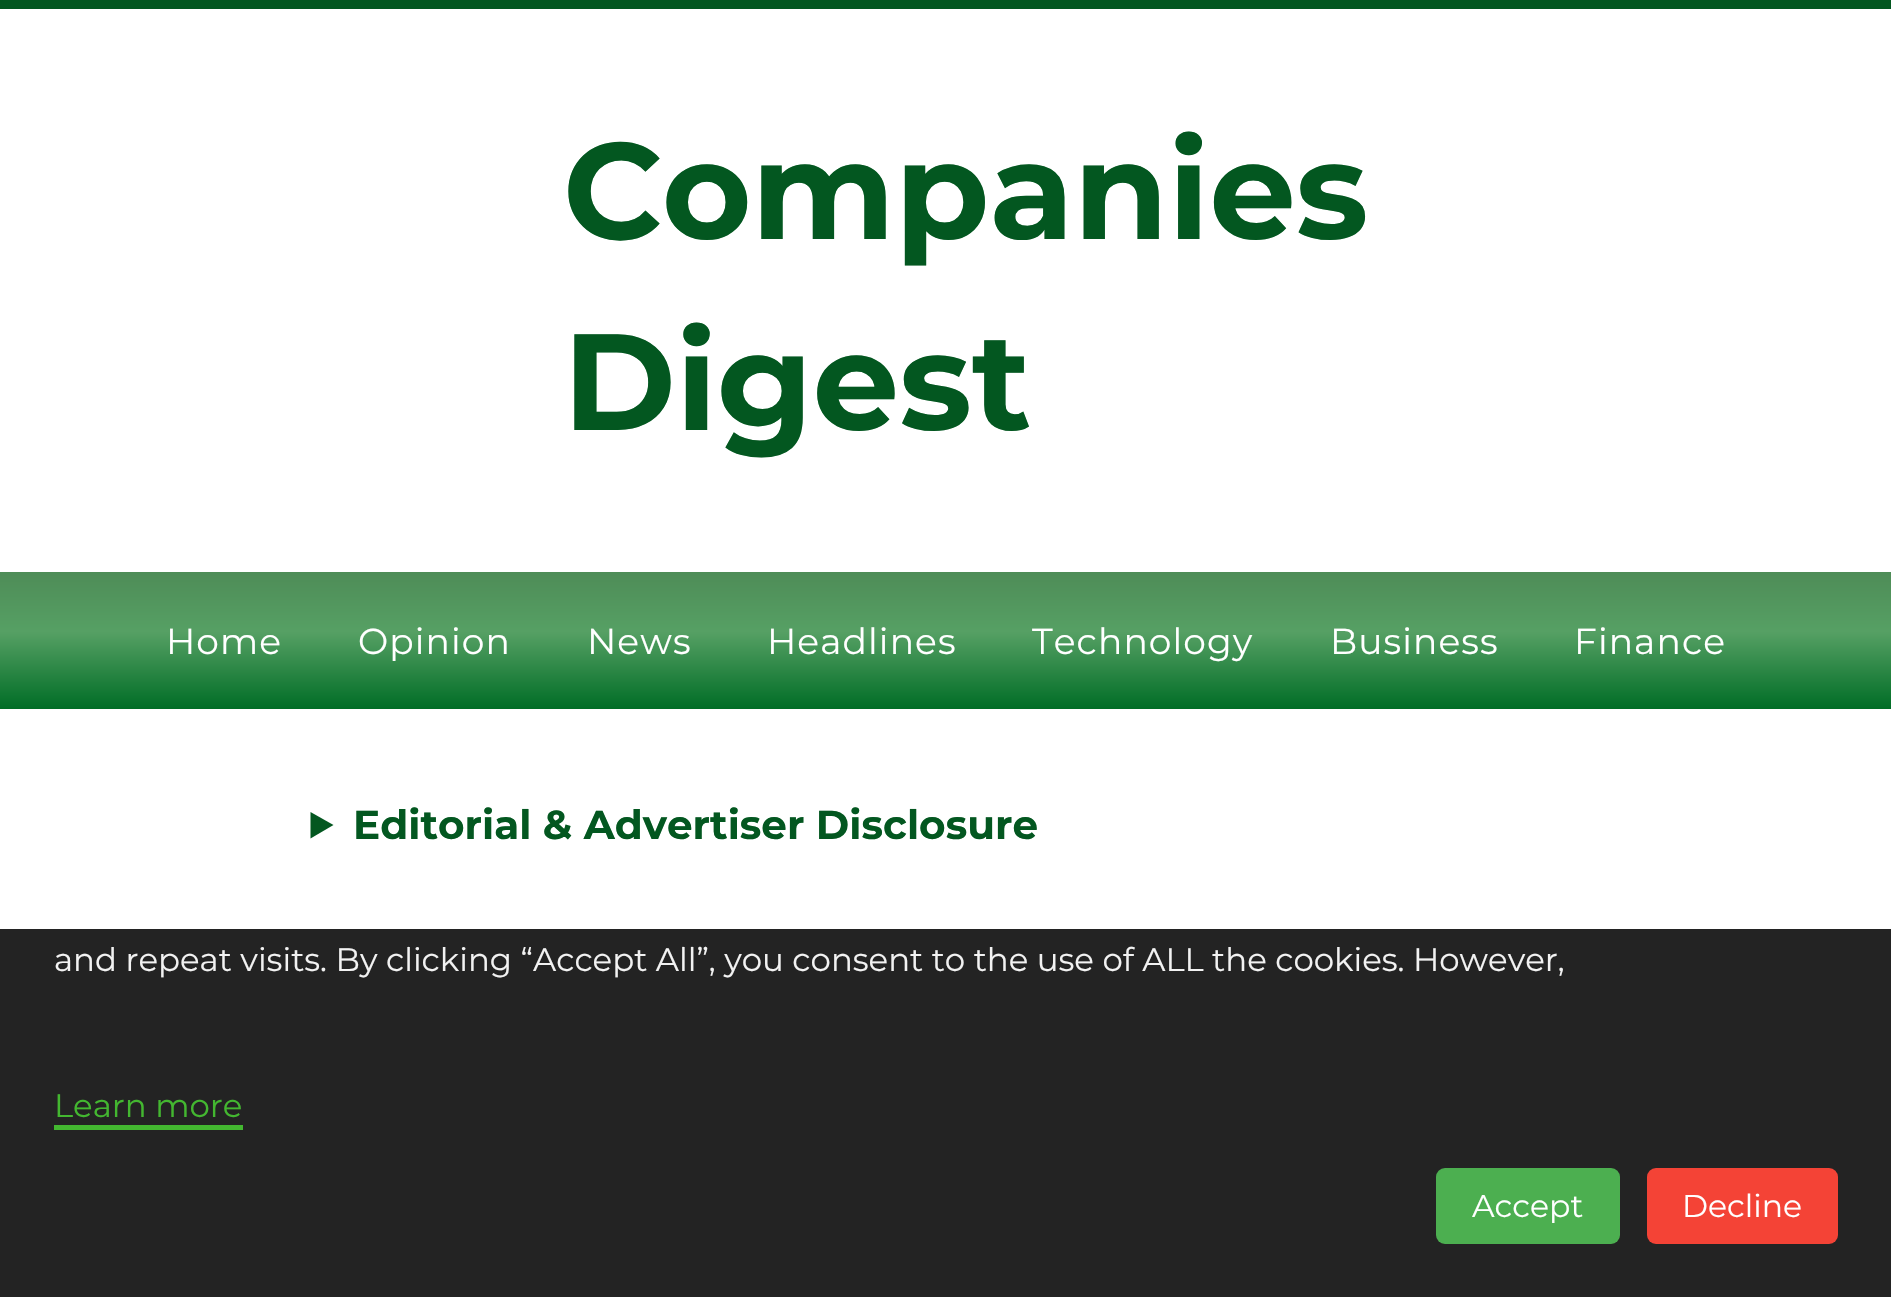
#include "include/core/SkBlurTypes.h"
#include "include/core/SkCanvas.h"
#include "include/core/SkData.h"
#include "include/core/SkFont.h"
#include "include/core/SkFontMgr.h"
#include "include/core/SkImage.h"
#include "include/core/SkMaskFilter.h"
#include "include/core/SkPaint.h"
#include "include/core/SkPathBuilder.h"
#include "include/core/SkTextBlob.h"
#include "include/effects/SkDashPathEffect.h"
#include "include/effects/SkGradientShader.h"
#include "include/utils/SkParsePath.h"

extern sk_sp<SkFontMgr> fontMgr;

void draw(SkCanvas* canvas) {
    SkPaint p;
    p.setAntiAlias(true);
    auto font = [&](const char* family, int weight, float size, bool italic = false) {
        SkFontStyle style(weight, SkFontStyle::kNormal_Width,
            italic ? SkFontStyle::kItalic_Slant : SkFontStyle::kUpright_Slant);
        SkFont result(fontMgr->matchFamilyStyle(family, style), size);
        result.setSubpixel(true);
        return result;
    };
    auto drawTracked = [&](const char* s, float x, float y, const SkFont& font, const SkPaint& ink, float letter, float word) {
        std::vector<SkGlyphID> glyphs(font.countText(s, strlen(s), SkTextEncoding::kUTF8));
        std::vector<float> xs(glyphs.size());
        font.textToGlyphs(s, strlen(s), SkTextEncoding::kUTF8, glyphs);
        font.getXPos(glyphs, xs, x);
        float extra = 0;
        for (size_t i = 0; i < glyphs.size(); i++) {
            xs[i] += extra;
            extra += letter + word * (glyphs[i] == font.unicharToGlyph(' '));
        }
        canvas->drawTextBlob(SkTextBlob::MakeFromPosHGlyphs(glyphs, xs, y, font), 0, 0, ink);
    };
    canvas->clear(0xFF232323);
    p.setColor(0xFFFFFFFF);
    canvas->drawRect(SkRect::MakeLTRB(0, 9, 1891, 929), p);
    p.setColor(0xFF035720);
    canvas->drawRect(SkRect::MakeLTRB(0, 0, 1891, 9), p);
    auto font1 = font("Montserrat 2", 100, 136.75f);
    canvas->drawString("Companies", 563, 239, font1, p);
    canvas->drawString("Digest", 563, 430, font1, p);
    {
        const SkColor colors[] = {0xFF4E8C57, 0xFF56A064, 0xFF006D26};
        const float stops[] = {0, 0.44f, 1};
        const SkPoint ends[] = {{946, 571}, {946, 709}};
        p.setShader(SkGradientShader::MakeLinear(ends, colors, stops, 3, SkTileMode::kClamp));
        p.setAlpha(255);
    }
    canvas->drawRect(SkRect::MakeLTRB(0, 572, 1891, 709), p);
    auto font2 = font("Montserrat", 100, 36);
    p.setShader(nullptr);
    p.setColor(0xFFFFFFFF);
    {
        const struct { const char* s; float x, y; } items[] = {
            {"Home", 166, 654},
            {"Opinion", 358, 654},
            {"News", 587, 654},
            {"Headlines", 767, 654},
            {"Technology", 1032, 654},
            {"Business", 1330, 654},
            {"Finance", 1574, 654},
        };
        for (auto [s, x, y] : items) {
            drawTracked(s, x, y, font2, p, 1.1f, 0);
        }
    }
    p.setColor(0xFF035720);
    canvas->drawPath(SkPathBuilder().moveTo(310.5f, 812).lineTo(333.5f, 825).lineTo(310.5f, 838.5f).close().detach(), p);
    auto font3 = font("Montserrat 2", 100, 40.5f);
    canvas->drawString("Editorial & Advertiser Disclosure", 353, 839, font3, p);
    auto font4 = font("Montserrat", 100, 32.4f);
    p.setColor(0xFFF2F2F2);
    canvas->drawString("and repeat visits. By clicking “Accept All”, you consent to the use of ALL the cookies. However,", 54, 971, font4, p);
    p.setColor(0xFF43B730);
    canvas->drawString("Learn more", 54, 1117, font4, p);
    canvas->drawRect(SkRect::MakeLTRB(54, 1125, 243, 1130), p);
    p.setColor(0xFF4CAF50);
    canvas->drawRoundRect(SkRect::MakeLTRB(1436, 1168, 1620, 1244), 9, 9, p);
    auto font5 = font("Montserrat", 100, 31.5f);
    p.setColor(0xFFFFFFFF);
    canvas->drawString("Accept", 1472, 1217, font5, p);
    p.setColor(0xFFF44336);
    canvas->drawRoundRect(SkRect::MakeLTRB(1647, 1168, 1838, 1244), 9, 9, p);
    p.setColor(0xFFFFFFFF);
    canvas->drawString("Decline", 1682, 1217, font5, p);
}
